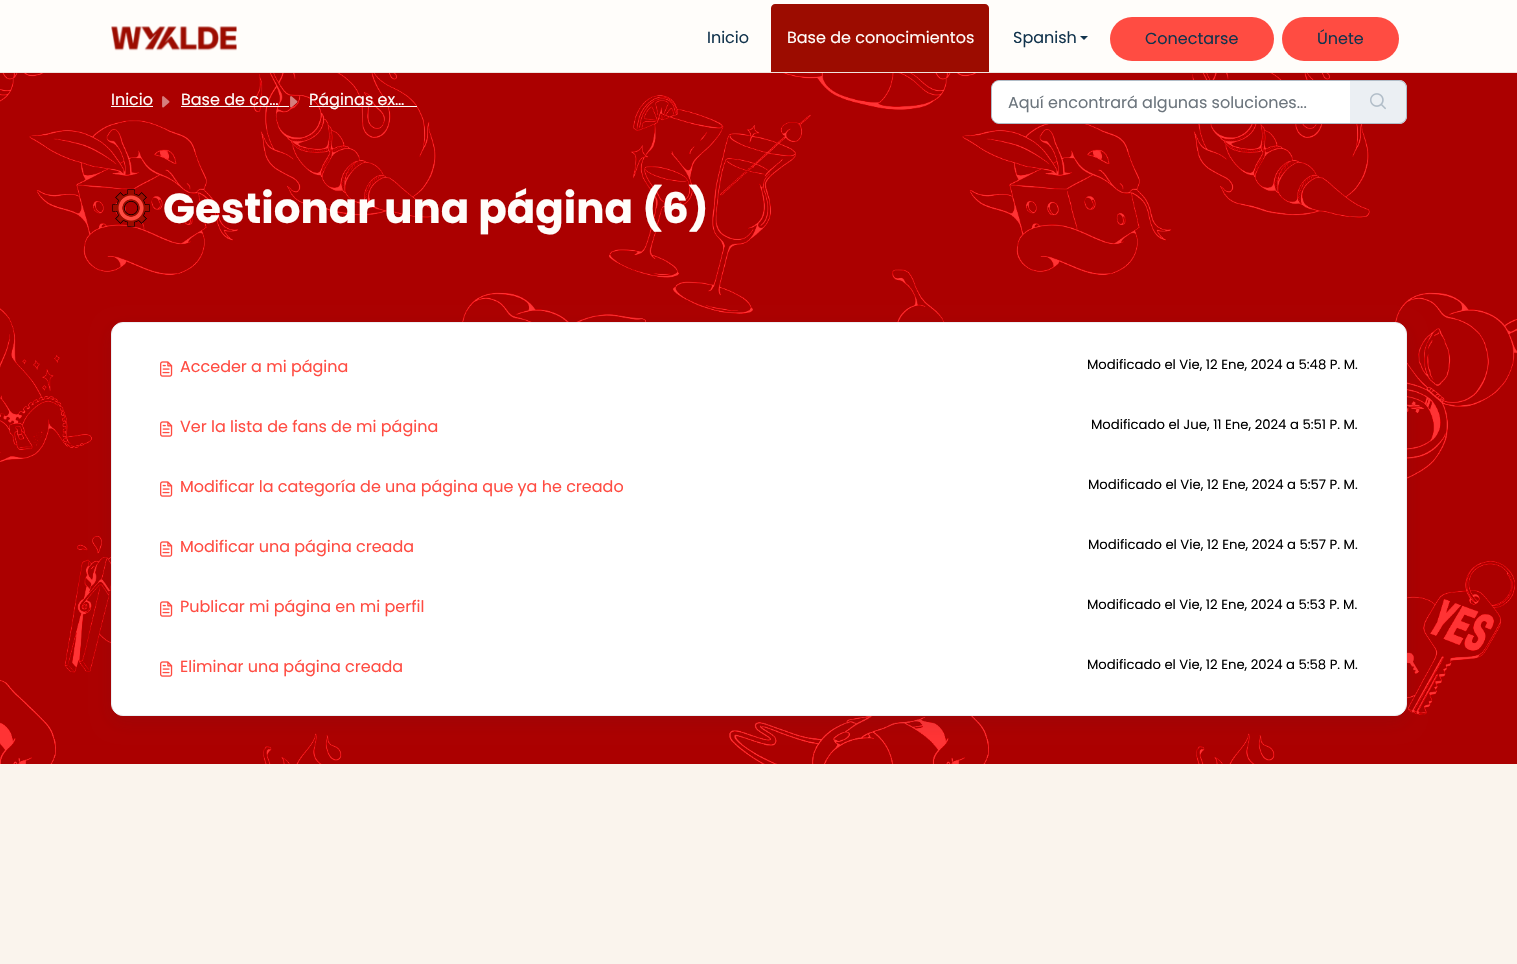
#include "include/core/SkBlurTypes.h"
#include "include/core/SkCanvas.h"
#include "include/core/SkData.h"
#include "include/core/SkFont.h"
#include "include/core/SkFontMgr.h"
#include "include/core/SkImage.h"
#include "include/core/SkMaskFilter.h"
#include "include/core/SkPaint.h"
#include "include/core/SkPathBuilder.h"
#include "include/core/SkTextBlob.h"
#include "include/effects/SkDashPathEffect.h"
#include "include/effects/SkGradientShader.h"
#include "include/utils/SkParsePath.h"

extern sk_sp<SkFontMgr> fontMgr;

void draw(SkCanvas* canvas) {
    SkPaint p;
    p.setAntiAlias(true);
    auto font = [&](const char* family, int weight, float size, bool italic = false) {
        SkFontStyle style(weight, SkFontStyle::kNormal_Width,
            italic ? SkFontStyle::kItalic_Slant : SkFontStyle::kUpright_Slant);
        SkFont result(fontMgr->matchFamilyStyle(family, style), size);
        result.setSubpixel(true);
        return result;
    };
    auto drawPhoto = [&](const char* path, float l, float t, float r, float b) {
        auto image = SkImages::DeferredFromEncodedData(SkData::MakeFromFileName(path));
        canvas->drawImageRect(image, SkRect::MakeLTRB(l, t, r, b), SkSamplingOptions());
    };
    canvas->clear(0xFFFAF4ED);
    p.setColor(0xFFFFFDFA);
    canvas->drawRect(SkRect::MakeLTRB(0, 0, 1517, 72), p);
    p.setColor(0xFFF0E3DE);
    canvas->drawRect(SkRect::MakeLTRB(0, 72, 1517, 73), p);
    drawPhoto("media/1.png", 111, 26, 237, 51);
    auto font1 = font("Poppins", 400, 16);
    p.setColor(0xFF12344D);
    canvas->drawString("Inicio", 707, 43, font1, p);
    p.setColor(0xFF9C0C00);
    canvas->drawPath(SkPathBuilder().moveTo(775, 4).lineTo(985, 4).cubicTo(987, 4, 989, 6, 989, 8).lineTo(989, 72).lineTo(771, 72).lineTo(771, 8).cubicTo(771, 6, 773, 4, 775, 4).close().detach(), p);
    p.setColor(0xFFFFFDFA);
    canvas->drawString("Base de conocimientos", 787, 43, font1, p);
    p.setColor(0xFF12344D);
    canvas->drawString("Spanish", 1013, 43, font1, p);
    canvas->drawPath(SkPathBuilder().moveTo(1080, 36).lineTo(1088, 36).lineTo(1084, 40).close().detach(), p);
    p.setColor(0xFFFF4C42);
    canvas->drawRoundRect(SkRect::MakeLTRB(1110, 17, 1274, 61), 22, 22, p);
    p.setColor(0xFF12344D);
    canvas->drawString("Conectarse", 1145, 44, font1, p);
    p.setColor(0xFFFF4C42);
    canvas->drawRoundRect(SkRect::MakeLTRB(1282, 17, 1399, 61), 22, 22, p);
    p.setColor(0xFF12344D);
    canvas->drawString("Únete", 1317, 44, font1, p);
    drawPhoto("media/2.png", 0, 73, 1517, 764);
    p.setColor(0xFFFFFDFA);
    canvas->drawString("Inicio", 111, 105, font1, p);
    canvas->drawRect(SkRect::MakeLTRB(111, 106, 153, 107), p);
    drawPhoto("media/3.png", 162, 96, 170, 108);
    canvas->drawString("Base de co…", 181, 105, font1, p);
    canvas->drawRect(SkRect::MakeLTRB(181, 106, 289, 107), p);
    drawPhoto("media/4.png", 290, 96, 298, 108);
    canvas->drawRect(SkRect::MakeLTRB(309, 106, 417, 107), p);
    canvas->drawString("Páginas ex…", 309, 105, font1, p);
    p.setColor(0xFFFFFFFF);
    canvas->drawPath(SkPathBuilder().moveTo(999, 80.5f).lineTo(1350.5f, 80.5f).lineTo(1350.5f, 123.5f).lineTo(999, 123.5f).cubicTo(995, 123.5f, 991.5f, 120, 991.5f, 116).lineTo(991.5f, 88).cubicTo(991.5f, 84, 995, 80.5f, 999, 80.5f).close().detach(), p);
    p.setStyle(SkPaint::kStroke_Style);
    p.setStrokeWidth(1);
    p.setColor(0xFFB1BDC8);
    canvas->drawPath(SkPathBuilder().moveTo(999, 80.5f).lineTo(1350.5f, 80.5f).lineTo(1350.5f, 123.5f).lineTo(999, 123.5f).cubicTo(995, 123.5f, 991.5f, 120, 991.5f, 116).lineTo(991.5f, 88).cubicTo(991.5f, 84, 995, 80.5f, 999, 80.5f).close().detach(), p);
    p.setStyle(SkPaint::kFill_Style);
    p.setColor(0xFF6C757D);
    canvas->drawString("Aquí encontrará algunas soluciones...", 1008, 108, font1, p);
    p.setColor(0xFFEBEFF3);
    canvas->drawPath(SkPathBuilder().moveTo(1350, 80).lineTo(1399, 80).cubicTo(1403.5f, 80, 1407, 83.5f, 1407, 88).lineTo(1407, 116).cubicTo(1407, 120.5f, 1403.5f, 124, 1399, 124).lineTo(1350, 124).close().detach(), p);
    p.setColor(0xFFB1BDC8);
    canvas->drawPath(SkPathBuilder(SkPathFillType::kEvenOdd).moveTo(1350, 80).lineTo(1399, 80).cubicTo(1403, 80, 1407, 84, 1407, 88).lineTo(1407, 116).cubicTo(1407, 120, 1403, 124, 1399, 124).lineTo(1350, 124).close().moveTo(1350, 81).lineTo(1399, 81).cubicTo(1403, 81, 1406, 84, 1406, 88).lineTo(1406, 116).cubicTo(1406, 120, 1403, 123, 1399, 123).lineTo(1350, 123).close().detach(), p);
    drawPhoto("media/5.png", 1370, 93, 1386, 110);
    drawPhoto("media/6.png", 112, 189, 150, 227);
    auto font2 = font("Poppins", 700, 42);
    p.setColor(0xFFFFFDFA);
    canvas->drawString("Gestionar una página (6)", 163, 223, font2, p);
    p.setColor(0x1A27313A);
    p.setMaskFilter(SkMaskFilter::MakeBlur(kNormal_SkBlurStyle, 9.5f));
    canvas->drawRoundRect(SkRect::MakeLTRB(111, 328, 1407, 722), 12, 12, p);
    p.setMaskFilter(nullptr);
    p.setColor(0xFFFFFFFF);
    canvas->drawRoundRect(SkRect::MakeLTRB(111.5f, 322.5f, 1406.5f, 715.5f), 11.5f, 11.5f, p);
    p.setStyle(SkPaint::kStroke_Style);
    p.setColor(0xFFEBEFF3);
    canvas->drawRoundRect(SkRect::MakeLTRB(111.5f, 322.5f, 1406.5f, 715.5f), 11.5f, 11.5f, p);
    drawPhoto("media/7.png", 160, 361, 173, 377);
    p.setStyle(SkPaint::kFill_Style);
    p.setColor(0xFFFF4C42);
    canvas->drawString("Acceder a mi página", 180, 372, font1, p);
    auto font3 = font("Poppins", 400, 13.2f);
    p.setColor(0xFF000000);
    canvas->drawString("Modificado el Vie, 12 Ene, 2024 a 5:48 P. M.", 1087, 369, font3, p);
    drawPhoto("media/7.png", 160, 421, 173, 437);
    p.setColor(0xFFFF4C42);
    canvas->drawString("Ver la lista de fans de mi página", 180, 432, font1, p);
    p.setColor(0xFF000000);
    canvas->drawString("Modificado el Jue, 11 Ene, 2024 a 5:51 P. M.", 1091, 429, font3, p);
    drawPhoto("media/7.png", 160, 481, 173, 497);
    p.setColor(0xFFFF4C42);
    canvas->drawString("Modificar la categoría de una página que ya he creado", 180, 492, font1, p);
    p.setColor(0xFF000000);
    canvas->drawString("Modificado el Vie, 12 Ene, 2024 a 5:57 P. M.", 1088, 489, font3, p);
    drawPhoto("media/7.png", 160, 541, 173, 557);
    p.setColor(0xFFFF4C42);
    canvas->drawString("Modificar una página creada", 180, 552, font1, p);
    p.setColor(0xFF000000);
    canvas->drawString("Modificado el Vie, 12 Ene, 2024 a 5:57 P. M.", 1088, 549, font3, p);
    drawPhoto("media/7.png", 160, 601, 173, 617);
    p.setColor(0xFFFF4C42);
    canvas->drawString("Publicar mi página en mi perfil", 180, 612, font1, p);
    p.setColor(0xFF000000);
    canvas->drawString("Modificado el Vie, 12 Ene, 2024 a 5:53 P. M.", 1087, 609, font3, p);
    drawPhoto("media/7.png", 160, 661, 173, 677);
    p.setColor(0xFFFF4C42);
    canvas->drawString("Eliminar una página creada", 180, 672, font1, p);
    p.setColor(0xFF000000);
    canvas->drawString("Modificado el Vie, 12 Ene, 2024 a 5:58 P. M.", 1087, 669, font3, p);
}
